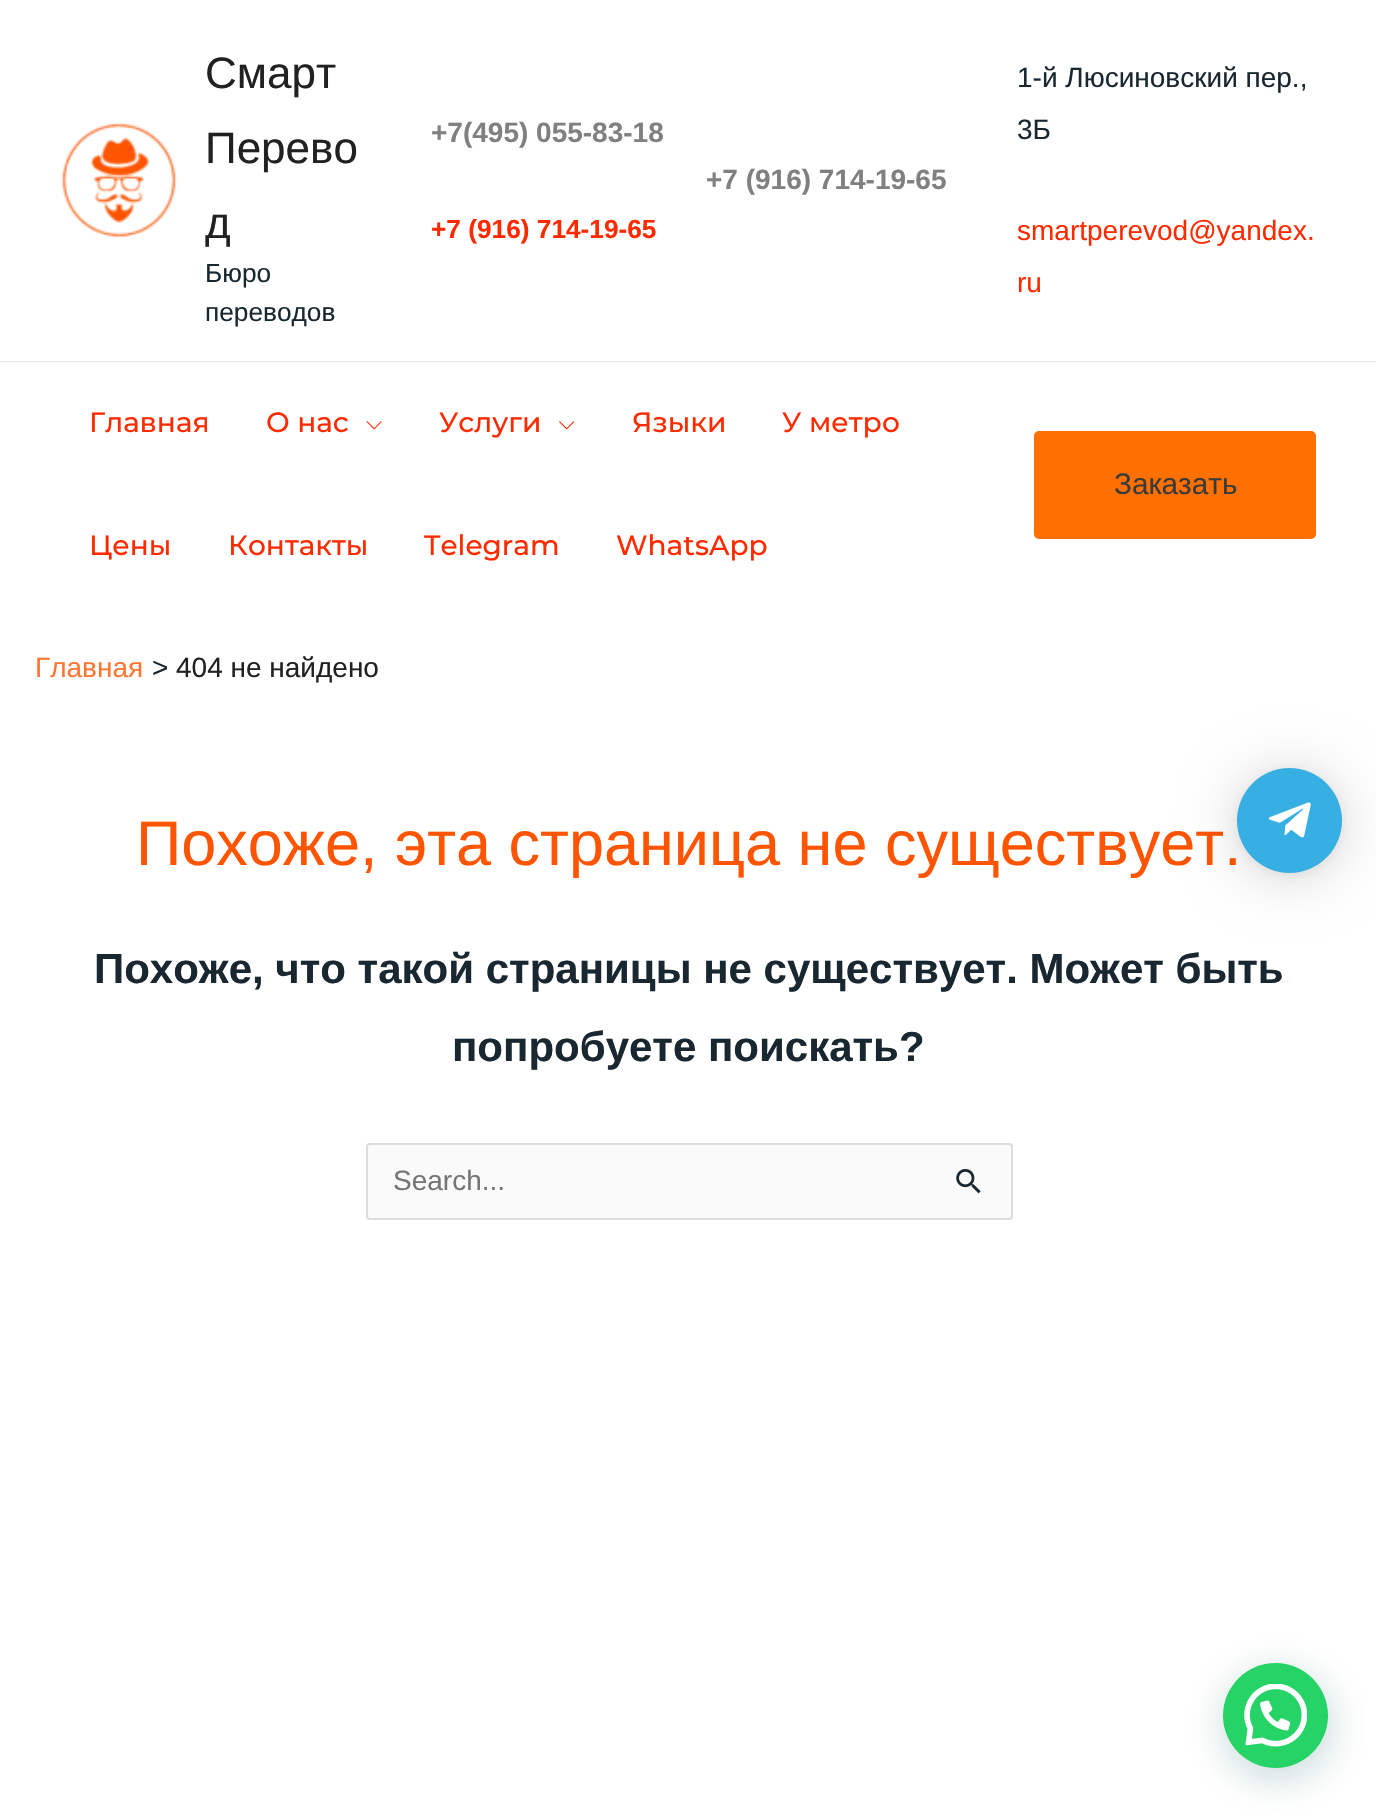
#include "include/core/SkBlurTypes.h"
#include "include/core/SkCanvas.h"
#include "include/core/SkData.h"
#include "include/core/SkFont.h"
#include "include/core/SkFontMgr.h"
#include "include/core/SkImage.h"
#include "include/core/SkMaskFilter.h"
#include "include/core/SkPaint.h"
#include "include/core/SkPathBuilder.h"
#include "include/core/SkTextBlob.h"
#include "include/effects/SkDashPathEffect.h"
#include "include/effects/SkGradientShader.h"
#include "include/utils/SkParsePath.h"

extern sk_sp<SkFontMgr> fontMgr;

void draw(SkCanvas* canvas) {
    SkPaint p;
    p.setAntiAlias(true);
    auto font = [&](const char* family, int weight, float size, bool italic = false) {
        SkFontStyle style(weight, SkFontStyle::kNormal_Width,
            italic ? SkFontStyle::kItalic_Slant : SkFontStyle::kUpright_Slant);
        SkFont result(fontMgr->matchFamilyStyle(family, style), size);
        result.setSubpixel(true);
        return result;
    };
    auto drawPhoto = [&](const char* path, float l, float t, float r, float b) {
        auto image = SkImages::DeferredFromEncodedData(SkData::MakeFromFileName(path));
        canvas->drawImageRect(image, SkRect::MakeLTRB(l, t, r, b), SkSamplingOptions());
    };
    canvas->clear(0xFFFFFFFF);
    p.setColor(0xFFE5E5E5);
    canvas->drawRect(SkRect::MakeLTRB(0, 361, 1376, 362), p);
    drawPhoto("media/1.png", 61, 122, 177, 238);
    auto font1 = font("Liberation Sans", 400, 44);
    p.setColor(0xFF212121);
    {
        const struct { const char* s; float x, y; } items[] = {
            {"Смарт", 205, 88},
            {"Перево", 205, 163},
            {"д", 205, 238},
        };
        for (auto [s, x, y] : items) {
            canvas->drawString(s, x, y, font1, p);
        }
    }
    auto font2 = font("Liberation Sans", 400, 26.25f);
    p.setColor(0xFF192730);
    canvas->drawString("Бюро", 205, 282, font2, p);
    canvas->drawString("переводов", 205, 321, font2, p);
    auto font3 = font("Liberation Sans", 700, 28);
    p.setColor(0xFF808080);
    canvas->drawString("+7(495) 055-83-18", 431, 142, font3, p);
    auto font4 = font("Liberation Sans", 700, 26.25f);
    p.setColor(0xFFFF2B00);
    canvas->drawString("+7 (916) 714-19-65", 431, 238, font4, p);
    p.setColor(0xFF808080);
    canvas->drawString("+7 (916) 714-19-65", 706, 189, font3, p);
    auto font5 = font("Liberation Sans", 400, 28);
    p.setColor(0xFF192730);
    canvas->drawString("1-й Люсиновский пер.,", 1017, 87, font5, p);
    canvas->drawString("3Б", 1017, 139, font5, p);
    p.setColor(0xFFFF2B00);
    canvas->drawString("smartperevod@yandex.", 1017, 240, font5, p);
    canvas->drawString("ru", 1017, 292, font5, p);
    auto font6 = font("Montserrat", 100, 28);
    canvas->drawString("Главная", 89, 432, font6, p);
    canvas->drawString("О нас", 266, 432, font6, p);
    drawPhoto("media/2.png", 366, 421, 382, 430);
    canvas->drawString("Услуги", 439, 432, font6, p);
    drawPhoto("media/3.png", 559, 421, 575, 430);
    {
        const struct { const char* s; float x, y; } items[] = {
            {"Языки", 632, 432},
            {"У метро", 782, 432},
            {"Цены", 89, 555},
            {"Контакты", 228, 555},
            {"Telegram", 424, 555},
            {"WhatsApp", 616, 555},
        };
        for (auto [s, x, y] : items) {
            canvas->drawString(s, x, y, font6, p);
        }
    }
    p.setColor(0xFFFF7000);
    canvas->drawRoundRect(SkRect::MakeLTRB(1034, 431, 1316, 539), 5, 5, p);
    auto font7 = font("Liberation Sans", 400, 29.75f);
    p.setColor(0xFF3A3A3A);
    canvas->drawString("Заказать", 1114, 494, font7, p);
    p.setColor(0xFFFF7633);
    canvas->drawString("Главная", 35, 677, font5, p);
    p.setColor(0xFF192730);
    canvas->drawString(">", 152, 677, font5, p);
    p.setColor(0xFF212121);
    canvas->drawString("404 не найдено", 176, 677, font5, p);
    auto font8 = font("Liberation Sans", 400, 63);
    p.setColor(0xFFFF5400);
    canvas->drawString("Похоже, эта страница не существует.", 136, 865, font8, p);
    auto font9 = font("Liberation Sans", 700, 42);
    p.setColor(0xFF192730);
    canvas->drawString("Похоже, что такой страницы не существует. Может быть", 94, 983, font9, p);
    canvas->drawString("попробуете поискать?", 452, 1061, font9, p);
    p.setColor(0xFFFAFAFA);
    canvas->drawRoundRect(SkRect::MakeLTRB(367, 1144, 1012, 1219), 3, 3, p);
    p.setStyle(SkPaint::kStroke_Style);
    p.setStrokeWidth(2);
    p.setColor(0xFFDDDDDD);
    canvas->drawRoundRect(SkRect::MakeLTRB(367, 1144, 1012, 1219), 3, 3, p);
    p.setStyle(SkPaint::kFill_Style);
    p.setColor(0xFF757575);
    canvas->drawString("Search...", 393, 1190, font5, p);
    drawPhoto("media/4.png", 956, 1168, 981, 1194);
    p.setColor(0x29000000);
    p.setMaskFilter(SkMaskFilter::MakeBlur(kNormal_SkBlurStyle, 28));
    canvas->drawRoundRect(SkRect::MakeLTRB(1237, 772, 1342, 877), 52.5f, 52.5f, p);
    p.setMaskFilter(nullptr);
    p.setColor(0x0F000000);
    p.setMaskFilter(SkMaskFilter::MakeBlur(kNormal_SkBlurStyle, 5));
    canvas->drawRoundRect(SkRect::MakeLTRB(1237, 770, 1342, 875), 52.5f, 52.5f, p);
    p.setMaskFilter(nullptr);
    p.setColor(0xFF37AFE2);
    canvas->drawCircle(1289.5f, 820.5f, 52.5f, p);
    drawPhoto("media/5.png", 1268, 802, 1311, 838);
    p.setColor(0x3D075E54);
    p.setMaskFilter(SkMaskFilter::MakeBlur(kNormal_SkBlurStyle, 21));
    canvas->drawRoundRect(SkRect::MakeLTRB(1225, 1673, 1330, 1778), 52.5f, 52.5f, p);
    p.setMaskFilter(nullptr);
    p.setColor(0xFF25D366);
    canvas->drawCircle(1275.5f, 1715.5f, 52.5f, p);
    drawPhoto("media/6.png", 1244, 1684, 1307, 1747);
}
